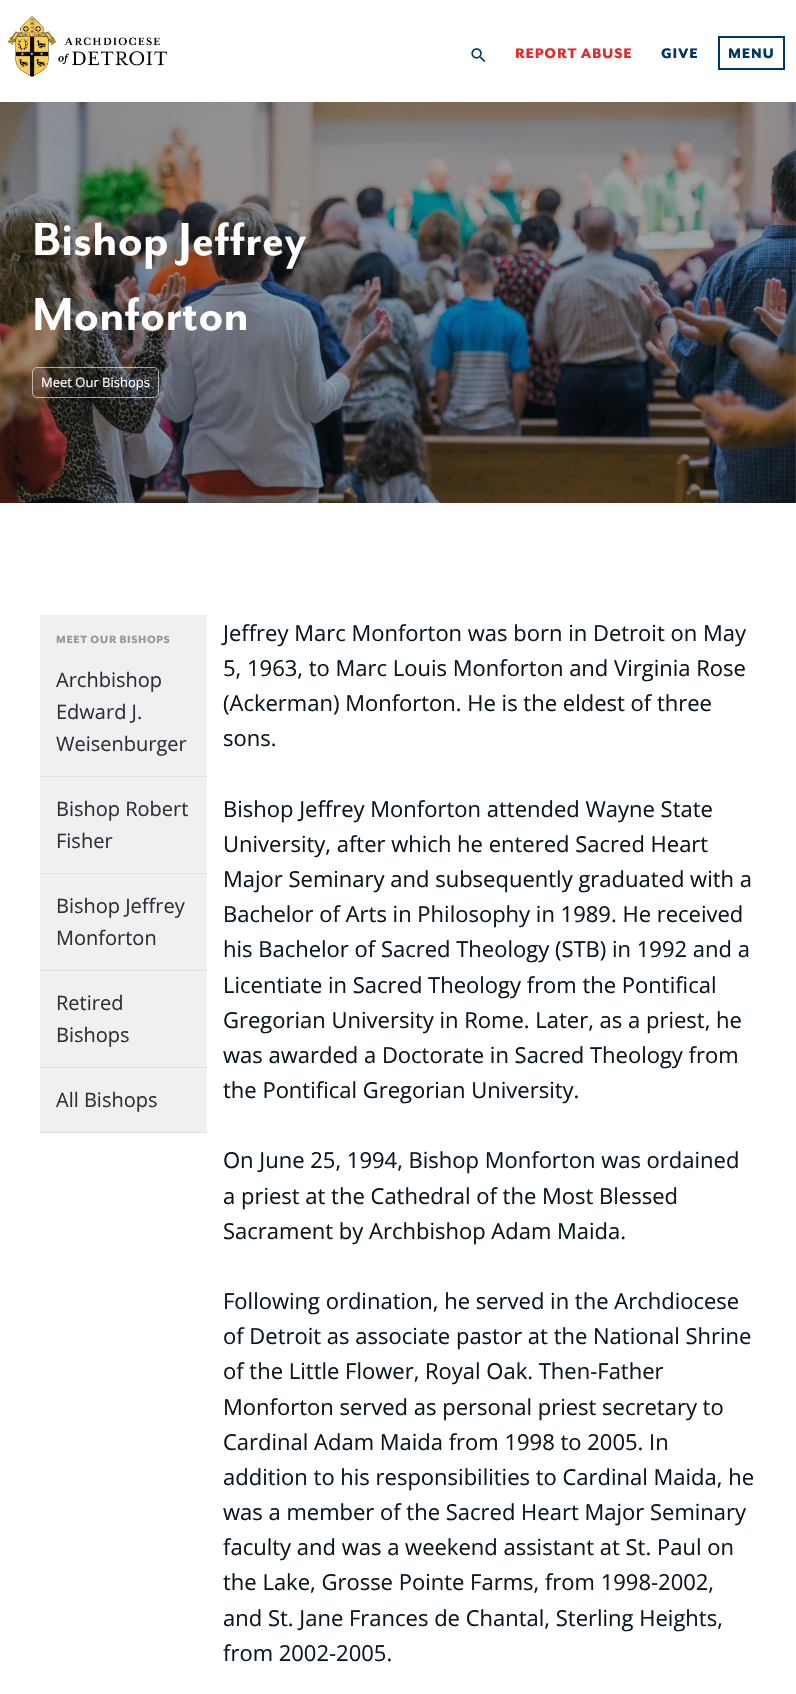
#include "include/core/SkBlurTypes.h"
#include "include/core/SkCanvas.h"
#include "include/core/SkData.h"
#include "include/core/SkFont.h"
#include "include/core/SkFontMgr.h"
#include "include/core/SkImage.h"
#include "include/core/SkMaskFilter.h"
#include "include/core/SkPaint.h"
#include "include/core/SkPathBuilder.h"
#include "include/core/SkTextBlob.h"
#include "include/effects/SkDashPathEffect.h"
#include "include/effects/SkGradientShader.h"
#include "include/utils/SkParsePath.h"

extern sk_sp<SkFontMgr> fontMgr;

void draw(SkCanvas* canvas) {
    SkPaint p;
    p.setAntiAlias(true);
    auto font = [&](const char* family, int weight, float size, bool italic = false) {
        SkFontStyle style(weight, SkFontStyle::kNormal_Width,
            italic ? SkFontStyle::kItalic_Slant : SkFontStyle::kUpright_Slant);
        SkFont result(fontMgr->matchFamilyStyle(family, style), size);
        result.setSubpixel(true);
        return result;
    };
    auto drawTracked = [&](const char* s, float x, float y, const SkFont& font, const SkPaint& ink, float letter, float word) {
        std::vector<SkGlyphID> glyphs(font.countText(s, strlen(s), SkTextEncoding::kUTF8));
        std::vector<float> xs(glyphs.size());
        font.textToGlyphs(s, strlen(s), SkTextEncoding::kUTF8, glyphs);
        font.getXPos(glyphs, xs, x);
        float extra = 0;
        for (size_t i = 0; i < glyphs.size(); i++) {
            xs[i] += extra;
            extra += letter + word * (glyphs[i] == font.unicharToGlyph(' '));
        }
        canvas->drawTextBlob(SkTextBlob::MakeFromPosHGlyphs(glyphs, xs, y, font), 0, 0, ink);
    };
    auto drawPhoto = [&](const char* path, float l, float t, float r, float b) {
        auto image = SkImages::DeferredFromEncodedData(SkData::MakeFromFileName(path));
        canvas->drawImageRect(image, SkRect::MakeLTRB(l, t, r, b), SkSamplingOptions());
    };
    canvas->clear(0xFFFFFFFF);
    drawPhoto("media/1.png", 8, 16, 167, 77);
    drawPhoto("media/2.png", 471, 48, 486, 63);
    auto font1 = font("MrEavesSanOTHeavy", 900, 16);
    p.setColor(0xFFE32B29);
    drawTracked("REPORT ABUSE", 515, 58, font1, p, 0.75f, 0);
    p.setColor(0xFF003764);
    drawTracked("GIVE", 661, 58, font1, p, 0.75f, 0);
    p.setStyle(SkPaint::kStroke_Style);
    p.setStrokeWidth(2);
    canvas->drawRect(SkRect::MakeLTRB(719, 37, 784, 69), p);
    p.setStyle(SkPaint::kFill_Style);
    drawTracked("MENU", 728, 58, font1, p, 0.75f, 0);
    drawPhoto("media/3.png", 0, 102, 796, 503);
    auto font2 = font("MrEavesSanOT", 700, 53.25f);
    p.setColor(0xFFFFFFFF);
    canvas->drawString("Bishop Jeffrey", 32, 255, font2, p);
    canvas->drawString("Monforton", 32, 330, font2, p);
    p.setStyle(SkPaint::kStroke_Style);
    p.setStrokeWidth(1);
    p.setColor(0x99FFFFFF);
    canvas->drawRoundRect(SkRect::MakeLTRB(32.5f, 367.5f, 158.5f, 397.5f), 4.5f, 4.5f, p);
    auto font3 = font("Open Sans", 400, 13);
    p.setStyle(SkPaint::kFill_Style);
    p.setColor(0xFFFFFFFF);
    canvas->drawString("Meet Our Bishops", 41, 387, font3, p);
    p.setColor(0xFFF0F0F0);
    canvas->drawRect(SkRect::MakeLTRB(40, 615, 207, 776), p);
    auto font4 = font("MrEavesSanOTHeavy", 900, 12);
    p.setColor(0xFF999999);
    drawTracked("MEET OUR BISHOPS", 56, 643, font4, p, 0.6f, 0);
    p.setColor(0xFFDDE0E7);
    canvas->drawRect(SkRect::MakeLTRB(40, 776, 207, 777), p);
    auto font5 = font("Open Sans", 400, 20);
    p.setColor(0xFF2A313A);
    {
        const struct { const char* s; float x, y; } items[] = {
            {"Archbishop", 56, 687},
            {"Edward J.", 56, 719},
            {"Weisenburger", 56, 751},
        };
        for (auto [s, x, y] : items) {
            canvas->drawString(s, x, y, font5, p);
        }
    }
    p.setColor(0xFFF0F0F0);
    canvas->drawRect(SkRect::MakeLTRB(40, 777, 207, 873), p);
    p.setColor(0xFFDDE0E7);
    canvas->drawRect(SkRect::MakeLTRB(40, 873, 207, 874), p);
    p.setColor(0xFF2A313A);
    canvas->drawString("Bishop Robert", 56, 816, font5, p);
    canvas->drawString("Fisher", 56, 848, font5, p);
    p.setColor(0xFFF0F0F0);
    canvas->drawRect(SkRect::MakeLTRB(40, 874, 207, 970), p);
    p.setColor(0xFFDDE0E7);
    canvas->drawRect(SkRect::MakeLTRB(40, 970, 207, 971), p);
    p.setColor(0xFF2A313A);
    canvas->drawString("Bishop Jeffrey", 56, 913, font5, p);
    canvas->drawString("Monforton", 56, 945, font5, p);
    p.setColor(0xFFF0F0F0);
    canvas->drawRect(SkRect::MakeLTRB(40, 971, 207, 1067), p);
    p.setColor(0xFFDDE0E7);
    canvas->drawRect(SkRect::MakeLTRB(40, 1067, 207, 1068), p);
    p.setColor(0xFF2A313A);
    canvas->drawString("Retired", 56, 1010, font5, p);
    canvas->drawString("Bishops", 56, 1042, font5, p);
    p.setColor(0xFFF0F0F0);
    canvas->drawRect(SkRect::MakeLTRB(40, 1068, 207, 1132), p);
    p.setColor(0xFFDDE0E7);
    canvas->drawRect(SkRect::MakeLTRB(40, 1132, 207, 1133), p);
    p.setColor(0xFF2A313A);
    canvas->drawString("All Bishops", 56, 1107, font5, p);
    auto font6 = font("Open Sans", 400, 22);
    p.setColor(0xFF091720);
    {
        const struct { const char* s; float x, y; } items[] = {
            {"Jeffrey Marc Monforton was born in Detroit on May", 223, 641},
            {"5, 1963, to Marc Louis Monforton and Virginia Rose", 223, 676},
            {"(Ackerman) Monforton. He is the eldest of three", 223, 711},
            {"sons.", 223, 746},
            {"Bishop Jeffrey Monforton attended Wayne State", 223, 817},
            {"University, after which he entered Sacred Heart", 223, 852},
            {"Major Seminary and subsequently graduated with a", 223, 887},
            {"Bachelor of Arts in Philosophy in 1989. He received", 223, 922},
            {"his Bachelor of Sacred Theology (STB) in 1992 and a", 223, 957},
            {"Licentiate in Sacred Theology from the Pontifical", 223, 993},
            {"Gregorian University in Rome. Later, as a priest, he", 223, 1028},
            {"was awarded a Doctorate in Sacred Theology from", 223, 1063},
            {"the Pontifical Gregorian University.", 223, 1098},
            {"On June 25, 1994, Bishop Monforton was ordained", 223, 1168},
            {"a priest at the Cathedral of the Most Blessed", 223, 1204},
            {"Sacrament by Archbishop Adam Maida.", 223, 1239},
            {"Following ordination, he served in the Archdiocese", 223, 1309},
            {"of Detroit as associate pastor at the National Shrine", 223, 1344},
            {"of the Little Flower, Royal Oak. Then-Father", 223, 1379},
            {"Monforton served as personal priest secretary to", 223, 1415},
            {"Cardinal Adam Maida from 1998 to 2005. In", 223, 1450},
            {"addition to his responsibilities to Cardinal Maida, he", 223, 1485},
            {"was a member of the Sacred Heart Major Seminary", 223, 1520},
            {"faculty and was a weekend assistant at St. Paul on", 223, 1555},
            {"the Lake, Grosse Pointe Farms, from 1998-2002,", 223, 1590},
            {"and St. Jane Frances de Chantal, Sterling Heights,", 223, 1626},
            {"from 2002-2005.", 223, 1661},
        };
        for (auto [s, x, y] : items) {
            canvas->drawString(s, x, y, font6, p);
        }
    }
}
